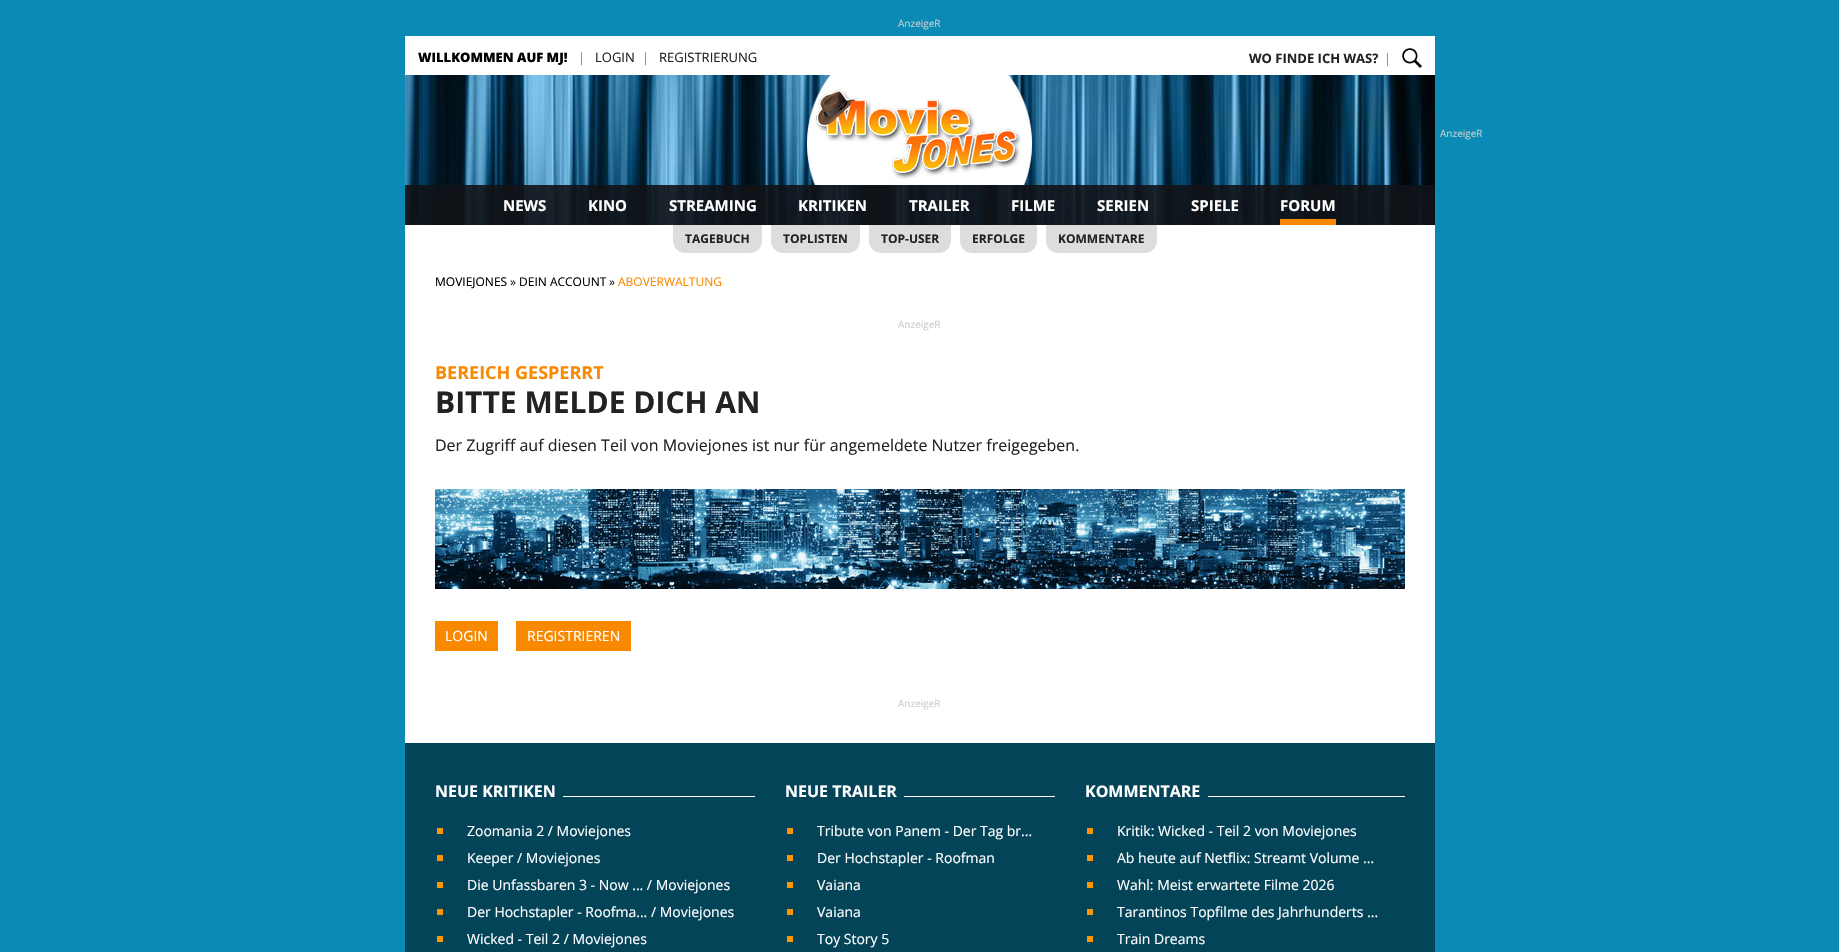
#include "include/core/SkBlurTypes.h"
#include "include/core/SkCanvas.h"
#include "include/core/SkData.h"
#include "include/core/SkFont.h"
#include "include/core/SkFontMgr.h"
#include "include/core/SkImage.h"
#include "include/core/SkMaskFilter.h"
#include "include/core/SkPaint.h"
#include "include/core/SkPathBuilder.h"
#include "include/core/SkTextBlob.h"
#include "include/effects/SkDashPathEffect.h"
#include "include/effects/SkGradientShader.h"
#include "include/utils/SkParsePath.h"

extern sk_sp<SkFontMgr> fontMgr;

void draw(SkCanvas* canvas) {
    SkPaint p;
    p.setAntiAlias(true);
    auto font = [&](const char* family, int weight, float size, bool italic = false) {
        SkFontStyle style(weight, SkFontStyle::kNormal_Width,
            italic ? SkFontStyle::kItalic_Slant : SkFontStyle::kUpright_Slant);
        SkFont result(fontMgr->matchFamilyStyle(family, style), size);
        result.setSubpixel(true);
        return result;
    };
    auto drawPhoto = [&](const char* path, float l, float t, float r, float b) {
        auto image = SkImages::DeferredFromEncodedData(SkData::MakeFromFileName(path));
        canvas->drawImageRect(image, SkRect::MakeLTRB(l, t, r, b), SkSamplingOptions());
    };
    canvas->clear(0xFF0B8AB5);
    auto font1 = font("Open Sans", 400, 10);
    p.setColor(0xFFCCCCCC);
    canvas->drawString("AnzeigeR", 898, 27, font1, p);
    p.setColor(0xFFFFFFFF);
    canvas->drawRect(SkRect::MakeLTRB(405, 36, 1435, 743), p);
    auto font2 = font("Open Sans", 800, 13);
    p.setColor(0xFF000000);
    canvas->drawString("WILLKOMMEN AUF MJ!", 418, 62, font2, p);
    auto font3 = font("Open Sans", 400, 13);
    p.setColor(0xFF888888);
    canvas->drawString("|", 578, 62, font3, p);
    p.setColor(0xFF222222);
    canvas->drawString("LOGIN", 595, 62, font3, p);
    p.setColor(0xFF888888);
    canvas->drawString("|", 642, 62, font3, p);
    p.setColor(0xFF222222);
    canvas->drawString("REGISTRIERUNG", 659, 62, font3, p);
    auto font4 = font("Open Sans", 700, 13);
    canvas->drawString("WO FINDE ICH WAS?", 1249, 63, font4, p);
    p.setColor(0xFF888888);
    canvas->drawString("|", 1384, 63, font3, p);
    drawPhoto("media/1.png", 1402, 48, 1422, 68);
    drawPhoto("media/2.png", 405, 75, 1435, 225);
    p.setColor(0xE60F1216);
    canvas->drawRect(SkRect::MakeLTRB(405, 185, 1435, 225), p);
    auto font5 = font("Open Sans", 700, 15);
    p.setColor(0xFFFFFFFF);
    {
        const struct { const char* s; float x, y; } items[] = {
            {"NEWS", 503, 211},
            {"KINO", 588, 211},
            {"STREAMING", 669, 211},
            {"KRITIKEN", 798, 211},
            {"TRAILER", 909, 211},
            {"FILME", 1011, 211},
            {"SERIEN", 1097, 211},
            {"SPIELE", 1191, 211},
            {"FORUM", 1280, 211},
        };
        for (auto [s, x, y] : items) {
            canvas->drawString(s, x, y, font5, p);
        }
    }
    p.setColor(0xFFFA8902);
    canvas->drawRect(SkRect::MakeLTRB(1280, 219, 1336, 225), p);
    p.setColor(0xFFDDDDDD);
    canvas->drawPath(SkPathBuilder().moveTo(673, 225).lineTo(762, 225).lineTo(762, 241).cubicTo(762, 247.5f, 756.5f, 253, 750, 253).lineTo(685, 253).cubicTo(678.5f, 253, 673, 247.5f, 673, 241).close().detach(), p);
    auto font6 = font("Open Sans", 700, 12);
    p.setColor(0xFF222222);
    canvas->drawString("TAGEBUCH", 685, 243, font6, p);
    p.setColor(0xFFDDDDDD);
    canvas->drawPath(SkPathBuilder().moveTo(771, 225).lineTo(860, 225).lineTo(860, 241).cubicTo(860, 247.5f, 854.5f, 253, 848, 253).lineTo(783, 253).cubicTo(776.5f, 253, 771, 247.5f, 771, 241).close().detach(), p);
    p.setColor(0xFF222222);
    canvas->drawString("TOPLISTEN", 783, 243, font6, p);
    p.setColor(0xFFDDDDDD);
    canvas->drawPath(SkPathBuilder().moveTo(869, 225).lineTo(951, 225).lineTo(951, 241).cubicTo(951, 247.5f, 945.5f, 253, 939, 253).lineTo(881, 253).cubicTo(874.5f, 253, 869, 247.5f, 869, 241).close().detach(), p);
    p.setColor(0xFF222222);
    canvas->drawString("TOP-USER", 881, 243, font6, p);
    p.setColor(0xFFDDDDDD);
    canvas->drawPath(SkPathBuilder().moveTo(960, 225).lineTo(1037, 225).lineTo(1037, 241).cubicTo(1037, 247.5f, 1031.5f, 253, 1025, 253).lineTo(972, 253).cubicTo(965.5f, 253, 960, 247.5f, 960, 241).close().detach(), p);
    p.setColor(0xFF222222);
    canvas->drawString("ERFOLGE", 972, 243, font6, p);
    p.setColor(0xFFDDDDDD);
    canvas->drawPath(SkPathBuilder().moveTo(1046, 225).lineTo(1157, 225).lineTo(1157, 241).cubicTo(1157, 247.5f, 1151.5f, 253, 1145, 253).lineTo(1058, 253).cubicTo(1051.5f, 253, 1046, 247.5f, 1046, 241).close().detach(), p);
    p.setColor(0xFF222222);
    canvas->drawString("KOMMENTARE", 1058, 243, font6, p);
    auto font7 = font("Open Sans", 400, 12);
    p.setColor(0xFF000000);
    canvas->drawString("MOVIEJONES", 435, 286, font7, p);
    p.setColor(0xFF222222);
    canvas->drawString("»", 510, 286, font7, p);
    p.setColor(0xFF000000);
    canvas->drawString("DEIN ACCOUNT", 519, 286, font7, p);
    p.setColor(0xFF222222);
    canvas->drawString("»", 609, 286, font7, p);
    p.setColor(0xFFFA8902);
    canvas->drawString("ABOVERWALTUNG", 618, 286, font7, p);
    p.setColor(0xFFCCCCCC);
    canvas->drawString("AnzeigeR", 898, 328, font1, p);
    auto font8 = font("Open Sans", 700, 18);
    p.setColor(0xFFFA8902);
    canvas->drawString("BEREICH GESPERRT", 435, 379, font8, p);
    auto font9 = font("Open Sans", 700, 30);
    p.setColor(0xFF222222);
    canvas->drawString("BITTE MELDE DICH AN", 435, 413, font9, p);
    auto font10 = font("Open Sans", 400, 16);
    canvas->drawString("Der Zugriff auf diesen Teil von Moviejones ist nur für angemeldete Nutzer freigegeben.", 435, 451, font10, p);
    drawPhoto("media/3.png", 435, 489, 1405, 589);
    p.setColor(0xFFFA8902);
    canvas->drawRect(SkRect::MakeLTRB(435, 621, 498, 651), p);
    auto font11 = font("Open Sans", 400, 14);
    p.setColor(0xFFFFFFFF);
    canvas->drawString("LOGIN", 445, 641, font11, p);
    p.setColor(0xFFFA8902);
    canvas->drawRect(SkRect::MakeLTRB(516, 621, 631, 651), p);
    p.setColor(0xFFFFFFFF);
    canvas->drawString("REGISTRIEREN", 527, 641, font11, p);
    p.setColor(0xFFCCCCCC);
    canvas->drawString("AnzeigeR", 898, 707, font1, p);
    p.setColor(0xFF034459);
    canvas->drawRect(SkRect::MakeLTRB(405, 743, 1435, 952), p);
    auto font12 = font("Open Sans", 700, 16);
    p.setColor(0xFFFFFFFF);
    canvas->drawString("NEUE KRITIKEN", 435, 797, font12, p);
    canvas->drawRect(SkRect::MakeLTRB(563, 796, 755, 797), p);
    p.setColor(0xFFFE9601);
    canvas->drawRect(SkRect::MakeLTRB(437, 828, 443, 834), p);
    p.setColor(0xFFFFFFFF);
    canvas->drawString("Zoomania 2 / Moviejones", 467, 836, font11, p);
    p.setColor(0xFFFE9601);
    canvas->drawRect(SkRect::MakeLTRB(437, 855, 443, 861), p);
    p.setColor(0xFFFFFFFF);
    canvas->drawString("Keeper / Moviejones", 467, 863, font11, p);
    p.setColor(0xFFFE9601);
    canvas->drawRect(SkRect::MakeLTRB(437, 882, 443, 888), p);
    p.setColor(0xFFFFFFFF);
    canvas->drawString("Die Unfassbaren 3 - Now ... / Moviejones", 467, 890, font11, p);
    p.setColor(0xFFFE9601);
    canvas->drawRect(SkRect::MakeLTRB(437, 909, 443, 915), p);
    p.setColor(0xFFFFFFFF);
    canvas->drawString("Der Hochstapler - Roofma... / Moviejones", 467, 917, font11, p);
    p.setColor(0xFFFE9601);
    canvas->drawRect(SkRect::MakeLTRB(437, 936, 443, 942), p);
    p.setColor(0xFFFFFFFF);
    canvas->drawString("Wicked - Teil 2 / Moviejones", 467, 944, font11, p);
    canvas->drawString("NEUE TRAILER", 785, 797, font12, p);
    canvas->drawRect(SkRect::MakeLTRB(904, 796, 1055, 797), p);
    p.setColor(0xFFFE9601);
    canvas->drawRect(SkRect::MakeLTRB(787, 828, 793, 834), p);
    p.setColor(0xFFFFFFFF);
    canvas->drawString("Tribute von Panem - Der Tag br...", 817, 836, font11, p);
    p.setColor(0xFFFE9601);
    canvas->drawRect(SkRect::MakeLTRB(787, 855, 793, 861), p);
    p.setColor(0xFFFFFFFF);
    canvas->drawString("Der Hochstapler - Roofman", 817, 863, font11, p);
    p.setColor(0xFFFE9601);
    canvas->drawRect(SkRect::MakeLTRB(787, 882, 793, 888), p);
    p.setColor(0xFFFFFFFF);
    canvas->drawString("Vaiana", 817, 890, font11, p);
    p.setColor(0xFFFE9601);
    canvas->drawRect(SkRect::MakeLTRB(787, 909, 793, 915), p);
    p.setColor(0xFFFFFFFF);
    canvas->drawString("Vaiana", 817, 917, font11, p);
    p.setColor(0xFFFE9601);
    canvas->drawRect(SkRect::MakeLTRB(787, 936, 793, 942), p);
    p.setColor(0xFFFFFFFF);
    canvas->drawString("Toy Story 5", 817, 944, font11, p);
    canvas->drawString("KOMMENTARE", 1085, 797, font12, p);
    canvas->drawRect(SkRect::MakeLTRB(1208, 796, 1405, 797), p);
    p.setColor(0xFFFE9601);
    canvas->drawRect(SkRect::MakeLTRB(1087, 828, 1093, 834), p);
    p.setColor(0xFFFFFFFF);
    canvas->drawString("Kritik: Wicked - Teil 2 von Moviejones", 1117, 836, font11, p);
    p.setColor(0xFFFE9601);
    canvas->drawRect(SkRect::MakeLTRB(1087, 855, 1093, 861), p);
    p.setColor(0xFFFFFFFF);
    canvas->drawString("Ab heute auf Netflix: Streamt Volume ...", 1117, 863, font11, p);
    p.setColor(0xFFFE9601);
    canvas->drawRect(SkRect::MakeLTRB(1087, 882, 1093, 888), p);
    p.setColor(0xFFFFFFFF);
    canvas->drawString("Wahl: Meist erwartete Filme 2026", 1117, 890, font11, p);
    p.setColor(0xFFFE9601);
    canvas->drawRect(SkRect::MakeLTRB(1087, 909, 1093, 915), p);
    p.setColor(0xFFFFFFFF);
    canvas->drawString("Tarantinos Topfilme des Jahrhunderts ...", 1117, 917, font11, p);
    p.setColor(0xFFFE9601);
    canvas->drawRect(SkRect::MakeLTRB(1087, 936, 1093, 942), p);
    p.setColor(0xFFFFFFFF);
    canvas->drawString("Train Dreams", 1117, 944, font11, p);
    p.setColor(0xFFCCCCCC);
    canvas->drawString("AnzeigeR", 1440, 137, font1, p);
}
